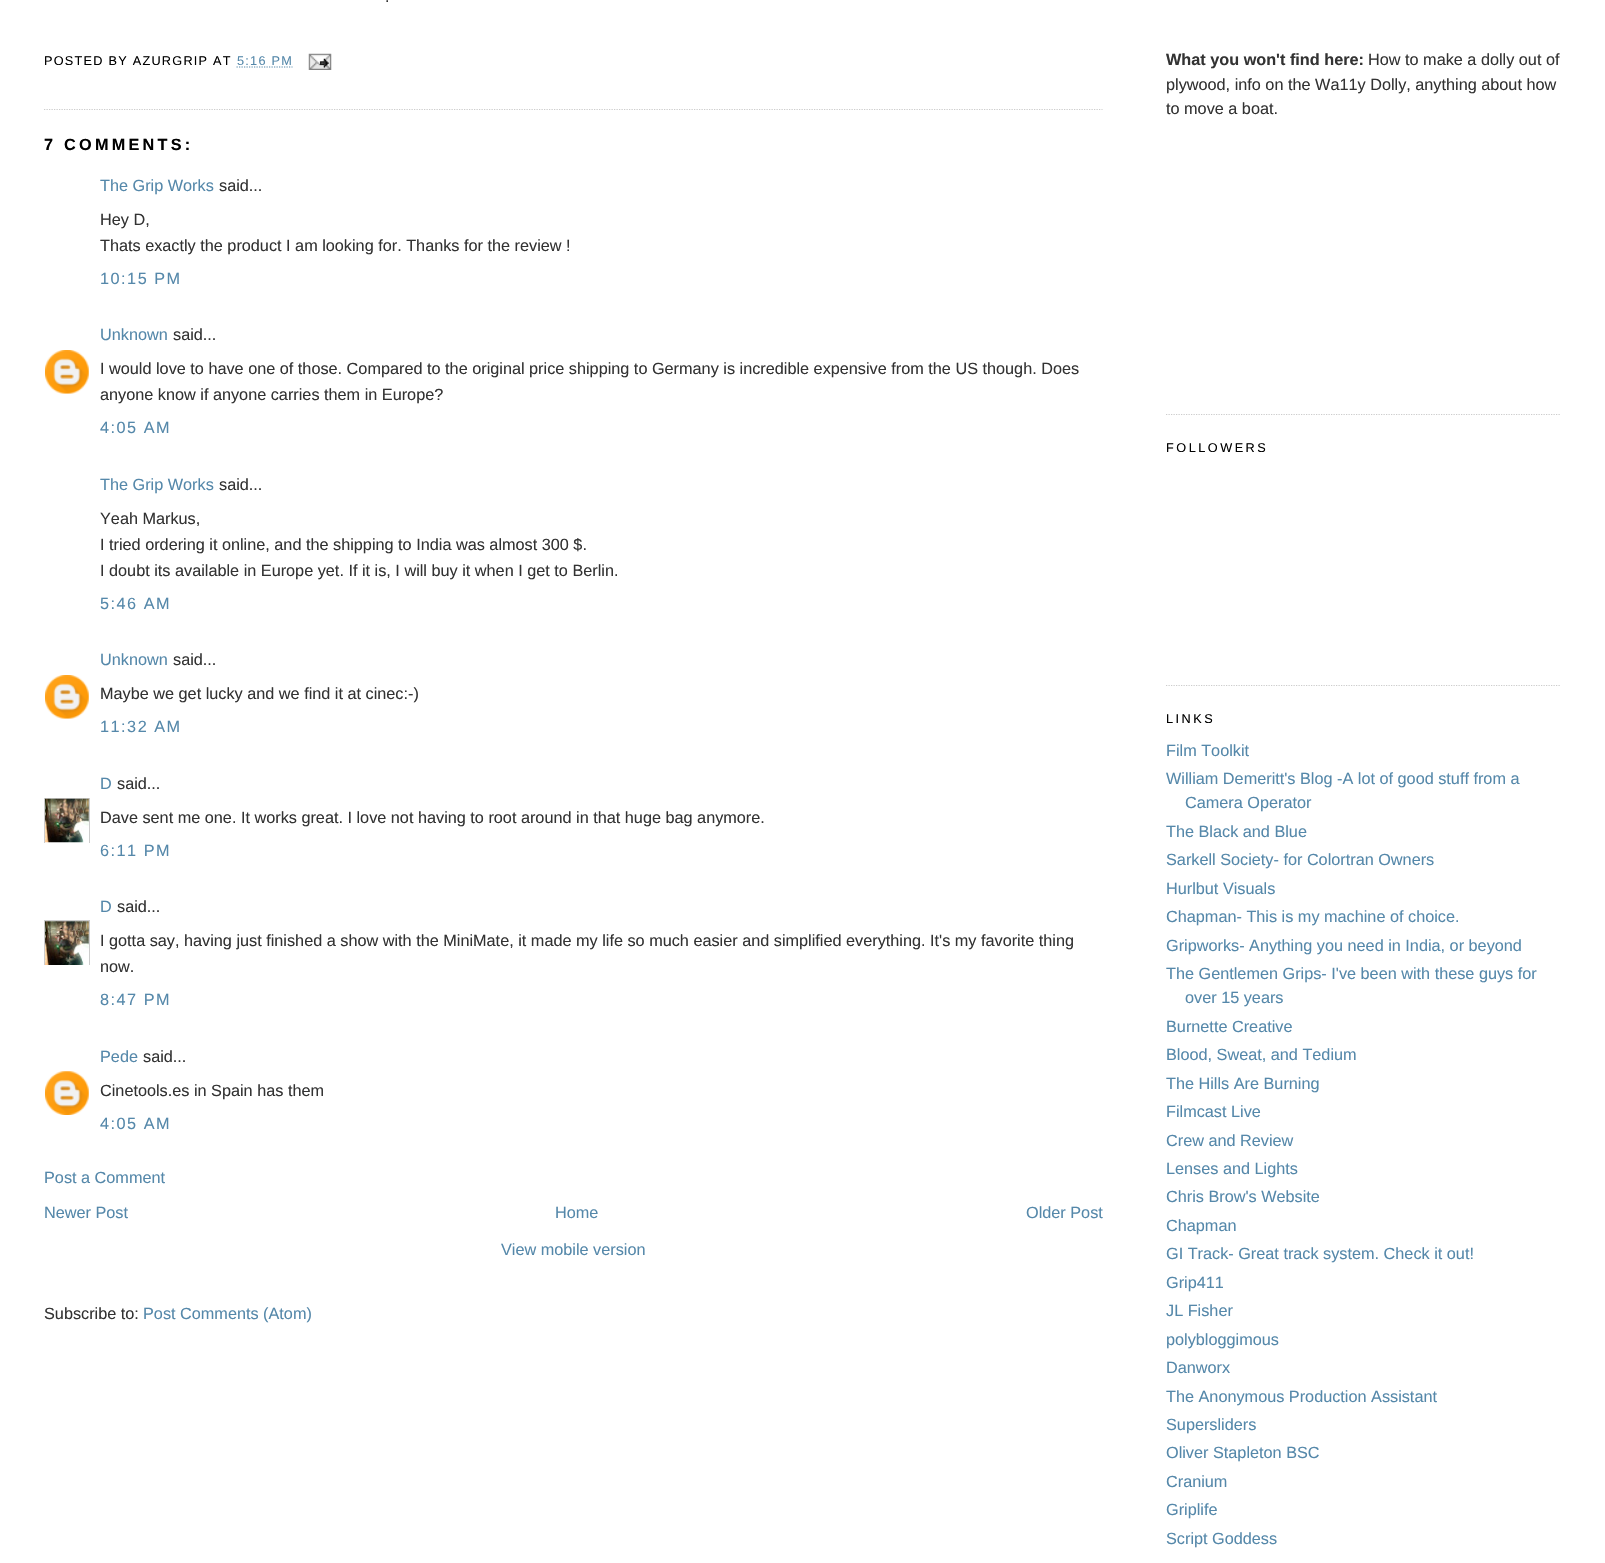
#include "include/core/SkBlurTypes.h"
#include "include/core/SkCanvas.h"
#include "include/core/SkData.h"
#include "include/core/SkFont.h"
#include "include/core/SkFontMgr.h"
#include "include/core/SkImage.h"
#include "include/core/SkMaskFilter.h"
#include "include/core/SkPaint.h"
#include "include/core/SkPathBuilder.h"
#include "include/core/SkTextBlob.h"
#include "include/effects/SkDashPathEffect.h"
#include "include/effects/SkGradientShader.h"
#include "include/utils/SkParsePath.h"

extern sk_sp<SkFontMgr> fontMgr;

void draw(SkCanvas* canvas) {
    SkPaint p;
    p.setAntiAlias(true);
    auto font = [&](const char* family, int weight, float size, bool italic = false) {
        SkFontStyle style(weight, SkFontStyle::kNormal_Width,
            italic ? SkFontStyle::kItalic_Slant : SkFontStyle::kUpright_Slant);
        SkFont result(fontMgr->matchFamilyStyle(family, style), size);
        result.setSubpixel(true);
        return result;
    };
    auto drawTracked = [&](const char* s, float x, float y, const SkFont& font, const SkPaint& ink, float letter, float word) {
        std::vector<SkGlyphID> glyphs(font.countText(s, strlen(s), SkTextEncoding::kUTF8));
        std::vector<float> xs(glyphs.size());
        font.textToGlyphs(s, strlen(s), SkTextEncoding::kUTF8, glyphs);
        font.getXPos(glyphs, xs, x);
        float extra = 0;
        for (size_t i = 0; i < glyphs.size(); i++) {
            xs[i] += extra;
            extra += letter + word * (glyphs[i] == font.unicharToGlyph(' '));
        }
        canvas->drawTextBlob(SkTextBlob::MakeFromPosHGlyphs(glyphs, xs, y, font), 0, 0, ink);
    };
    auto drawPhoto = [&](const char* path, float l, float t, float r, float b) {
        auto image = SkImages::DeferredFromEncodedData(SkData::MakeFromFileName(path));
        canvas->drawImageRect(image, SkRect::MakeLTRB(l, t, r, b), SkSamplingOptions());
    };
    canvas->clear(0xFFFFFFFF);
    p.setStyle(SkPaint::kStroke_Style);
    p.setStrokeWidth(1.2f);
    p.setColor(0xFFCCCCCC);
    p.setPathEffect(SkDashPathEffect::Make({{1.25f, 1.25f}}, 0));
    canvas->drawPath(SkPathBuilder().moveTo(44, 109.5f).lineTo(1102.5f, 109.5f).detach(), p);
    p.setPathEffect(nullptr);
    auto font1 = font("Liberation Sans", 400, 16.25f);
    p.setStyle(SkPaint::kFill_Style);
    p.setColor(0xFF333333);
    canvas->drawString(".", 385, 2, font1, p);
    auto font2 = font("Liberation Sans", 400, 12.7f);
    p.setColor(0xFF000000);
    drawTracked("POSTED BY AZURGRIP AT", 44, 65, font2, p, 1.25f, 0);
    p.setColor(0xFF5588AA);
    drawTracked("5:16 PM", 237, 65, font2, p, 1.25f, 0);
    p.setStyle(SkPaint::kStroke_Style);
    p.setPathEffect(SkDashPathEffect::Make({{1.25f, 1.25f}}, 0));
    canvas->drawPath(SkPathBuilder().moveTo(236.5f, 67).lineTo(292.5f, 67).detach(), p);
    p.setPathEffect(nullptr);
    drawPhoto("media/1.png", 308, 53, 332, 70);
    auto font3 = font("Liberation Sans", 700, 16.25f);
    p.setStyle(SkPaint::kFill_Style);
    p.setColor(0xFF000000);
    drawTracked("7 COMMENTS:", 44, 150, font3, p, 3.25f, 0);
    p.setColor(0xFF5588AA);
    canvas->drawString("The Grip Works", 100, 191, font1, p);
    p.setColor(0xFF333333);
    {
        const struct { const char* s; float x, y; } items[] = {
            {"said...", 219, 191},
            {"Hey D,", 100, 225},
            {"Thats exactly the product I am looking for. Thanks for the review !", 100, 251},
        };
        for (auto [s, x, y] : items) {
            canvas->drawString(s, x, y, font1, p);
        }
    }
    p.setColor(0xFF5588AA);
    drawTracked("10:15 PM", 100, 284, font1, p, 1.5f, 0);
    canvas->drawString("Unknown", 100, 340, font1, p);
    p.setColor(0xFF333333);
    canvas->drawString("said...", 173, 340, font1, p);
    drawPhoto("media/2.png", 45, 350, 89, 394);
    canvas->drawString("I would love to have one of those. Compared to the original price shipping to Germany is incredible expensive from the US though. Does", 100, 374, font1, p);
    canvas->drawString("anyone know if anyone carries them in Europe?", 100, 400, font1, p);
    p.setColor(0xFF5588AA);
    drawTracked("4:05 AM", 100, 433, font1, p, 1.5f, 0);
    canvas->drawString("The Grip Works", 100, 490, font1, p);
    p.setColor(0xFF333333);
    {
        const struct { const char* s; float x, y; } items[] = {
            {"said...", 219, 490},
            {"Yeah Markus,", 100, 524},
            {"I tried ordering it online, and the shipping to India was almost 300 $.", 100, 550},
            {"I doubt its available in Europe yet. If it is, I will buy it when I get to Berlin.", 100, 576},
        };
        for (auto [s, x, y] : items) {
            canvas->drawString(s, x, y, font1, p);
        }
    }
    p.setColor(0xFF5588AA);
    drawTracked("5:46 AM", 100, 609, font1, p, 1.5f, 0);
    canvas->drawString("Unknown", 100, 665, font1, p);
    p.setColor(0xFF333333);
    canvas->drawString("said...", 173, 665, font1, p);
    drawPhoto("media/2.png", 45, 675, 89, 719);
    canvas->drawString("Maybe we get lucky and we find it at cinec:-)", 100, 699, font1, p);
    p.setColor(0xFF5588AA);
    drawTracked("11:32 AM", 100, 732, font1, p, 1.5f, 0);
    canvas->drawString("D", 100, 789, font1, p);
    p.setColor(0xFF333333);
    canvas->drawString("said...", 117, 789, font1, p);
    canvas->save();
    canvas->clipRect(SkRect::MakeLTRB(44, 798, 90, 843));
    p.setStyle(SkPaint::kStroke_Style);
    p.setStrokeWidth(1);
    p.setColor(0xFFCCCCCC);
    canvas->drawRect(SkRect::MakeLTRB(44.5f, 798.5f, 89.5f, 843.5f), p);
    canvas->restore();
    drawPhoto("media/3.png", 45, 798, 89, 843);
    p.setStyle(SkPaint::kFill_Style);
    p.setColor(0xFF333333);
    canvas->drawString("Dave sent me one. It works great. I love not having to root around in that huge bag anymore.", 100, 823, font1, p);
    p.setColor(0xFF5588AA);
    drawTracked("6:11 PM", 100, 856, font1, p, 1.5f, 0);
    canvas->drawString("D", 100, 912, font1, p);
    p.setColor(0xFF333333);
    canvas->drawString("said...", 117, 912, font1, p);
    canvas->save();
    canvas->clipRect(SkRect::MakeLTRB(44, 920, 90, 965));
    p.setStyle(SkPaint::kStroke_Style);
    p.setColor(0xFFCCCCCC);
    canvas->drawRect(SkRect::MakeLTRB(44.5f, 920.5f, 89.5f, 965.5f), p);
    canvas->restore();
    drawPhoto("media/4.png", 45, 921, 89, 965);
    p.setStyle(SkPaint::kFill_Style);
    p.setColor(0xFF333333);
    canvas->drawString("I gotta say, having just finished a show with the MiniMate, it made my life so much easier and simplified everything. It's my favorite thing", 100, 946, font1, p);
    canvas->drawString("now.", 100, 972, font1, p);
    p.setColor(0xFF5588AA);
    drawTracked("8:47 PM", 100, 1005, font1, p, 1.5f, 0);
    canvas->drawString("Pede", 100, 1062, font1, p);
    p.setColor(0xFF333333);
    canvas->drawString("said...", 143, 1062, font1, p);
    drawPhoto("media/5.png", 45, 1071, 89, 1115);
    canvas->drawString("Cinetools.es in Spain has them", 100, 1096, font1, p);
    p.setColor(0xFF5588AA);
    drawTracked("4:05 AM", 100, 1129, font1, p, 1.5f, 0);
    {
        const struct { const char* s; float x, y; } items[] = {
            {"Post a Comment", 44, 1183},
            {"Newer Post", 44, 1218},
            {"Home", 555, 1218},
            {"Older Post", 1026, 1218},
            {"View mobile version", 501, 1255},
        };
        for (auto [s, x, y] : items) {
            canvas->drawString(s, x, y, font1, p);
        }
    }
    p.setColor(0xFF333333);
    canvas->drawString("Subscribe to:", 44, 1319, font1, p);
    p.setColor(0xFF5588AA);
    canvas->drawString("Post Comments (Atom)", 143, 1319, font1, p);
    p.setStyle(SkPaint::kStroke_Style);
    p.setStrokeWidth(1.2f);
    p.setColor(0xFFCCCCCC);
    p.setPathEffect(SkDashPathEffect::Make({{1.25f, 1.25f}}, 0));
    canvas->drawPath(SkPathBuilder().moveTo(1166, 414.5f).lineTo(1561, 414.5f).detach(), p);
    p.setPathEffect(nullptr);
    p.setStyle(SkPaint::kFill_Style);
    p.setColor(0xFF333333);
    canvas->drawString("What you won't find here:", 1166, 65, font3, p);
    {
        const struct { const char* s; float x, y; } items[] = {
            {"How to make a dolly out of", 1368, 65},
            {"plywood, info on the Wa11y Dolly, anything about how", 1166, 90},
            {"to move a boat.", 1166, 114},
        };
        for (auto [s, x, y] : items) {
            canvas->drawString(s, x, y, font1, p);
        }
    }
    p.setStyle(SkPaint::kStroke_Style);
    p.setColor(0xFFCCCCCC);
    p.setPathEffect(SkDashPathEffect::Make({{1.25f, 1.25f}}, 0));
    canvas->drawPath(SkPathBuilder().moveTo(1166, 685.5f).lineTo(1561, 685.5f).detach(), p);
    p.setPathEffect(nullptr);
    p.setStyle(SkPaint::kFill_Style);
    p.setColor(0xFF000000);
    drawTracked("FOLLOWERS", 1166, 452, font2, p, 2.5f, 0);
    drawTracked("LINKS", 1166, 723, font2, p, 2.5f, 0);
    p.setColor(0xFF5588AA);
    {
        const struct { const char* s; float x, y; } items[] = {
            {"Film Toolkit", 1166, 756},
            {"William Demeritt's Blog -A lot of good stuff from a", 1166, 784},
            {"Camera Operator", 1185, 808},
            {"The Black and Blue", 1166, 837},
            {"Sarkell Society- for Colortran Owners", 1166, 865},
            {"Hurlbut Visuals", 1166, 894},
            {"Chapman- This is my machine of choice.", 1166, 922},
            {"Gripworks- Anything you need in India, or beyond", 1166, 951},
            {"The Gentlemen Grips- I've been with these guys for", 1166, 979},
            {"over 15 years", 1185, 1003},
            {"Burnette Creative", 1166, 1032},
            {"Blood, Sweat, and Tedium", 1166, 1060},
            {"The Hills Are Burning", 1166, 1089},
            {"Filmcast Live", 1166, 1117},
            {"Crew and Review", 1166, 1146},
            {"Lenses and Lights", 1166, 1174},
            {"Chris Brow's Website", 1166, 1202},
            {"Chapman", 1166, 1231},
            {"GI Track- Great track system. Check it out!", 1166, 1259},
            {"Grip411", 1166, 1288},
            {"JL Fisher", 1166, 1316},
            {"polybloggimous", 1166, 1345},
            {"Danworx", 1166, 1373},
            {"The Anonymous Production Assistant", 1166, 1402},
            {"Supersliders", 1166, 1430},
            {"Oliver Stapleton BSC", 1166, 1458},
            {"Cranium", 1166, 1487},
            {"Griplife", 1166, 1515},
            {"Script Goddess", 1166, 1544},
        };
        for (auto [s, x, y] : items) {
            canvas->drawString(s, x, y, font1, p);
        }
    }
}
